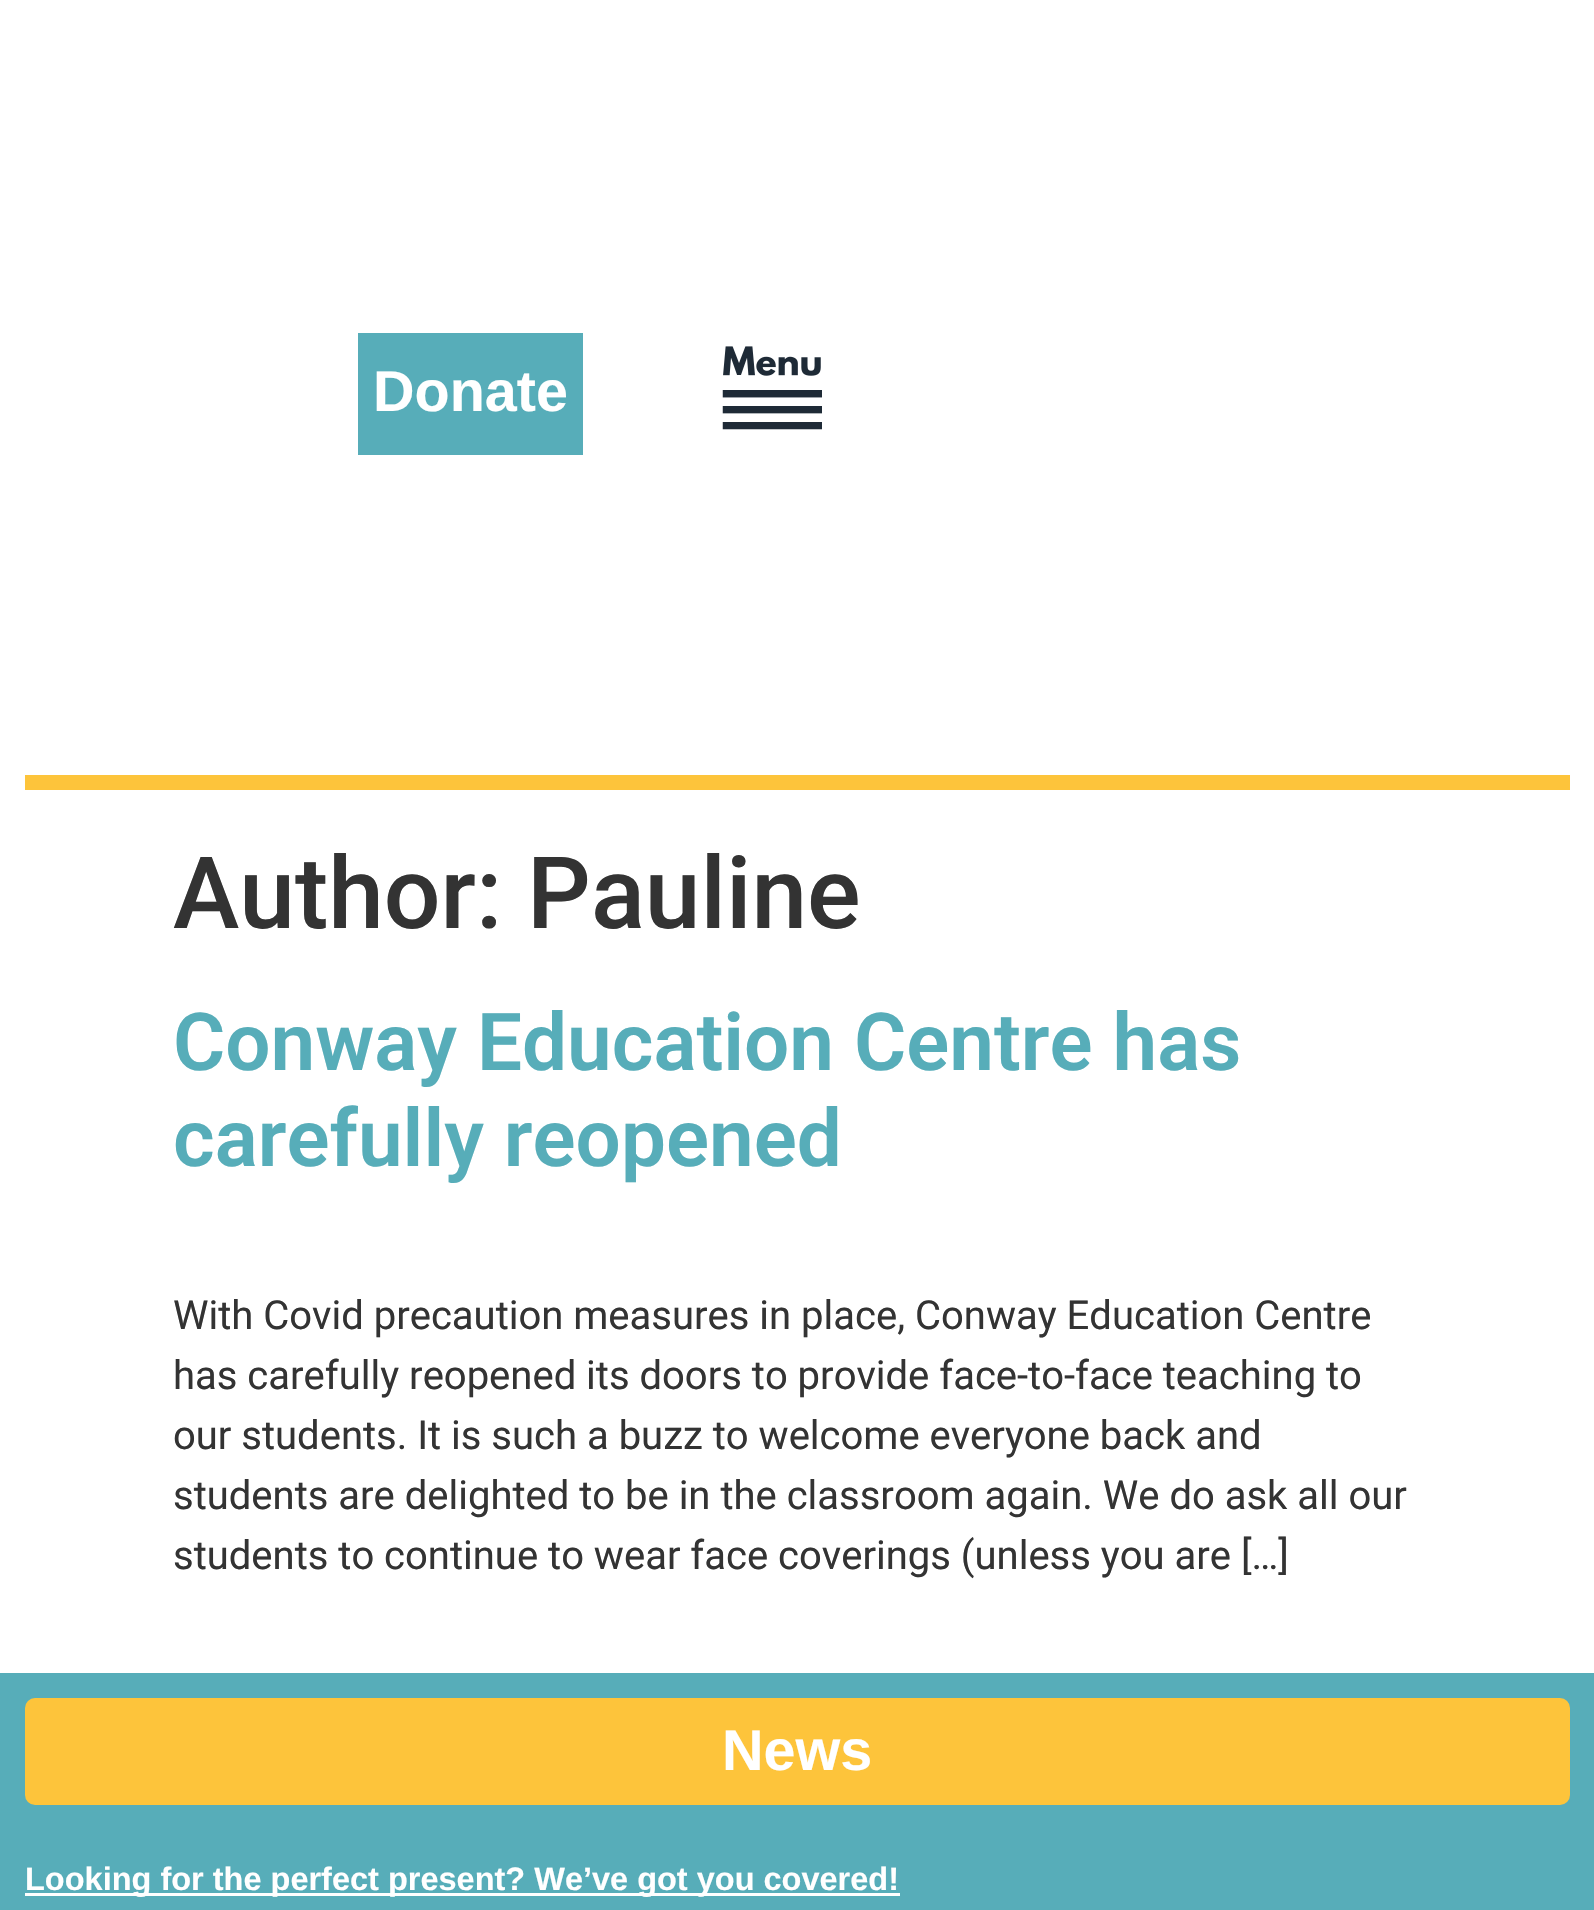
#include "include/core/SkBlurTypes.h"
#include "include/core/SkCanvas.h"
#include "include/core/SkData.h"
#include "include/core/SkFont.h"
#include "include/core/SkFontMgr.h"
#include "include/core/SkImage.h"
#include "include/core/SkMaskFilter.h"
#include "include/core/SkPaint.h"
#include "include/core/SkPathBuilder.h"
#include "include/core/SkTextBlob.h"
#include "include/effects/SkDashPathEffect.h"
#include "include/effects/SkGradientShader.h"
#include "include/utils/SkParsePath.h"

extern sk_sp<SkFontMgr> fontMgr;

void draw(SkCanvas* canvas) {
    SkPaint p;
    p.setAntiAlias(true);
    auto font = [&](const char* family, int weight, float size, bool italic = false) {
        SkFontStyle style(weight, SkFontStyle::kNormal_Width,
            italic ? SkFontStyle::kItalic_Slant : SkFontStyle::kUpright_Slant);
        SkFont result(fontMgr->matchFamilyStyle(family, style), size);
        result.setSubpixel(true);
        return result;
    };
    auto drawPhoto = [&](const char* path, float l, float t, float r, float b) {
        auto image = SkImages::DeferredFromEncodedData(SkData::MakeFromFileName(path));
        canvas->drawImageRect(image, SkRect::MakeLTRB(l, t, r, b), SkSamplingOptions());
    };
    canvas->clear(0xFFFFFFFF);
    p.setColor(0xFF57ADB9);
    canvas->drawRect(SkRect::MakeLTRB(358, 333, 583, 455), p);
    auto font1 = font("Liberation Sans", 700, 57.5f);
    p.setColor(0xFFFFFFFF);
    canvas->drawString("Donate", 373, 411, font1, p);
    drawPhoto("media/1.png", 722, 346, 822, 430);
    p.setColor(0xFFFDC43B);
    canvas->drawRect(SkRect::MakeLTRB(25, 775, 1570, 790), p);
    auto font2 = font("Roboto", 500, 100);
    p.setColor(0xFF333333);
    canvas->drawString("Author: Pauline", 173, 928, font2, p);
    auto font3 = font("Roboto", 600, 80);
    p.setColor(0xFF57ADB9);
    canvas->drawString("Conway Education Centre has", 173, 1070, font3, p);
    canvas->drawString("carefully reopened", 173, 1166, font3, p);
    auto font4 = font("Roboto", 400, 40);
    p.setColor(0xFF333333);
    {
        const struct { const char* s; float x, y; } items[] = {
            {"With Covid precaution measures in place, Conway Education Centre", 173, 1329},
            {"has carefully reopened its doors to provide face-to-face teaching to", 173, 1389},
            {"our students. It is such a buzz to welcome everyone back and", 173, 1449},
            {"students are delighted to be in the classroom again. We do ask all our", 173, 1509},
            {"students to continue to wear face coverings (unless you are […]", 173, 1569},
        };
        for (auto [s, x, y] : items) {
            canvas->drawString(s, x, y, font4, p);
        }
    }
    p.setColor(0xFF57ADB9);
    canvas->drawRect(SkRect::MakeLTRB(0, 1673, 1594, 1910), p);
    p.setColor(0xFFFDC43B);
    canvas->drawRoundRect(SkRect::MakeLTRB(25, 1698, 1570, 1805), 10, 10, p);
    p.setColor(0xFFFFFFFF);
    canvas->drawString("News", 722, 1770, font1, p);
    canvas->drawRect(SkRect::MakeLTRB(25, 1893, 900, 1896), p);
    auto font5 = font("Liberation Sans", 700, 32.5f);
    canvas->drawString("Looking for the perfect present? We’ve got you covered!", 25, 1890, font5, p);
}
